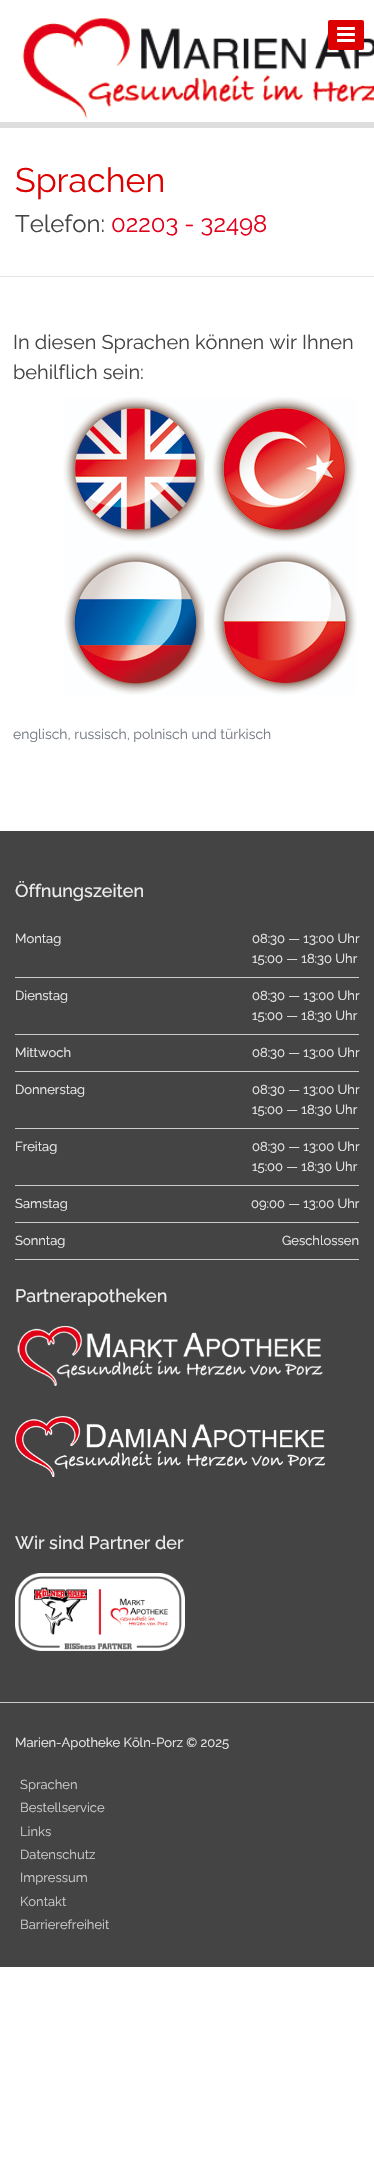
#include "include/core/SkBlurTypes.h"
#include "include/core/SkCanvas.h"
#include "include/core/SkData.h"
#include "include/core/SkFont.h"
#include "include/core/SkFontMgr.h"
#include "include/core/SkImage.h"
#include "include/core/SkMaskFilter.h"
#include "include/core/SkPaint.h"
#include "include/core/SkPathBuilder.h"
#include "include/core/SkTextBlob.h"
#include "include/effects/SkDashPathEffect.h"
#include "include/effects/SkGradientShader.h"
#include "include/utils/SkParsePath.h"

extern sk_sp<SkFontMgr> fontMgr;

void draw(SkCanvas* canvas) {
    SkPaint p;
    p.setAntiAlias(true);
    auto font = [&](const char* family, int weight, float size, bool italic = false) {
        SkFontStyle style(weight, SkFontStyle::kNormal_Width,
            italic ? SkFontStyle::kItalic_Slant : SkFontStyle::kUpright_Slant);
        SkFont result(fontMgr->matchFamilyStyle(family, style), size);
        result.setSubpixel(true);
        return result;
    };
    auto drawPhoto = [&](const char* path, float l, float t, float r, float b) {
        auto image = SkImages::DeferredFromEncodedData(SkData::MakeFromFileName(path));
        canvas->drawImageRect(image, SkRect::MakeLTRB(l, t, r, b), SkSamplingOptions());
    };
    canvas->clear(0xFFFFFFFF);
    p.setColor(0xFFDDDDDD);
    canvas->drawRect(SkRect::MakeLTRB(0, 122, 374, 128), p);
    drawPhoto("media/1.png", 22, 18, 374, 119);
    p.setColor(0xFFDD0000);
    canvas->drawRoundRect(SkRect::MakeLTRB(328, 20, 364, 50), 2, 2, p);
    drawPhoto("media/2.png", 337, 27, 355, 42);
    p.setColor(0xFFE3E5E7);
    canvas->drawRect(SkRect::MakeLTRB(0, 276, 374, 277), p);
    auto font1 = font("Raleway", 100, 34);
    p.setColor(0xFFDD0000);
    canvas->drawString("Sprachen", 15, 192, font1, p);
    auto font2 = font("Raleway", 100, 24);
    p.setColor(0xFF444444);
    canvas->drawString("Telefon:", 15, 232, font2, p);
    p.setColor(0xFFE2001A);
    canvas->drawString("02203 - 32498", 111, 232, font2, p);
    auto font3 = font("Raleway", 100, 20);
    p.setColor(0xFF444444);
    canvas->drawString("In diesen Sprachen können wir Ihnen", 13, 349, font3, p);
    canvas->drawString("behilflich sein:", 13, 379, font3, p);
    drawPhoto("media/3.png", 63, 397, 357, 695);
    auto font4 = font("Raleway", 100, 14);
    p.setColor(0xFF757B83);
    canvas->drawString("englisch, russisch, polnisch und türkisch", 13, 739, font4, p);
    p.setColor(0xFF444444);
    canvas->drawRect(SkRect::MakeLTRB(0, 831, 374, 1967), p);
    p.setColor(0xFFCCCCCC);
    canvas->drawRect(SkRect::MakeLTRB(0, 1702, 374, 1703), p);
    canvas->save();
    canvas->clipRect(SkRect::MakeLTRB(0, 881, 374, 1677));
    auto font5 = font("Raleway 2", 100, 18);
    p.setColor(0xFFEEEEEE);
    canvas->drawString("Öffnungszeiten", 15, 897, font5, p);
    canvas->restore();
    p.setColor(0xFFCCCCCC);
    canvas->drawRect(SkRect::MakeLTRB(15, 977, 359, 978), p);
    auto font6 = font("Raleway", 100, 13);
    p.setColor(0xFFEEEEEE);
    {
        const struct { const char* s; float x, y; } items[] = {
            {"Montag", 15, 943},
            {"08:30 — 13:00 Uhr", 252, 943},
            {"15:00 — 18:30 Uhr", 252, 963},
        };
        for (auto [s, x, y] : items) {
            canvas->drawString(s, x, y, font6, p);
        }
    }
    p.setColor(0xFFCCCCCC);
    canvas->drawRect(SkRect::MakeLTRB(15, 1034, 359, 1035), p);
    p.setColor(0xFFEEEEEE);
    {
        const struct { const char* s; float x, y; } items[] = {
            {"Dienstag", 15, 1000},
            {"08:30 — 13:00 Uhr", 252, 1000},
            {"15:00 — 18:30 Uhr", 252, 1020},
        };
        for (auto [s, x, y] : items) {
            canvas->drawString(s, x, y, font6, p);
        }
    }
    p.setColor(0xFFCCCCCC);
    canvas->drawRect(SkRect::MakeLTRB(15, 1071, 359, 1072), p);
    p.setColor(0xFFEEEEEE);
    canvas->drawString("Mittwoch", 15, 1057, font6, p);
    canvas->drawString("08:30 — 13:00 Uhr", 252, 1057, font6, p);
    p.setColor(0xFFCCCCCC);
    canvas->drawRect(SkRect::MakeLTRB(15, 1128, 359, 1129), p);
    p.setColor(0xFFEEEEEE);
    {
        const struct { const char* s; float x, y; } items[] = {
            {"Donnerstag", 15, 1094},
            {"08:30 — 13:00 Uhr", 252, 1094},
            {"15:00 — 18:30 Uhr", 252, 1114},
        };
        for (auto [s, x, y] : items) {
            canvas->drawString(s, x, y, font6, p);
        }
    }
    p.setColor(0xFFCCCCCC);
    canvas->drawRect(SkRect::MakeLTRB(15, 1185, 359, 1186), p);
    p.setColor(0xFFEEEEEE);
    {
        const struct { const char* s; float x, y; } items[] = {
            {"Freitag", 15, 1151},
            {"08:30 — 13:00 Uhr", 252, 1151},
            {"15:00 — 18:30 Uhr", 252, 1171},
        };
        for (auto [s, x, y] : items) {
            canvas->drawString(s, x, y, font6, p);
        }
    }
    p.setColor(0xFFCCCCCC);
    canvas->drawRect(SkRect::MakeLTRB(15, 1222, 359, 1223), p);
    p.setColor(0xFFEEEEEE);
    canvas->drawString("Samstag", 15, 1208, font6, p);
    canvas->drawString("09:00 — 13:00 Uhr", 251, 1208, font6, p);
    p.setColor(0xFFCCCCCC);
    canvas->drawRect(SkRect::MakeLTRB(15, 1259, 359, 1260), p);
    p.setColor(0xFFEEEEEE);
    canvas->drawString("Sonntag", 15, 1245, font6, p);
    canvas->drawString("Geschlossen", 282, 1245, font6, p);
    canvas->drawString("Partnerapotheken", 15, 1302, font5, p);
    drawPhoto("media/4.png", 17, 1326, 323, 1386);
    drawPhoto("media/5.png", 15, 1416, 325, 1477);
    canvas->drawString("Wir sind Partner der", 15, 1549, font5, p);
    drawPhoto("media/6.png", 15, 1573, 185, 1651);
    canvas->drawString("Marien-Apotheke Köln-Porz © 2025", 15, 1747, font6, p);
    p.setColor(0xFFCCCCCC);
    {
        const struct { const char* s; float x, y; } items[] = {
            {"Sprachen", 20, 1789},
            {"Bestellservice", 20, 1812},
            {"Links", 20, 1836},
            {"Datenschutz", 20, 1859},
            {"Impressum", 20, 1882},
            {"Kontakt", 20, 1906},
            {"Barrierefreiheit", 20, 1929},
        };
        for (auto [s, x, y] : items) {
            canvas->drawString(s, x, y, font6, p);
        }
    }
}
